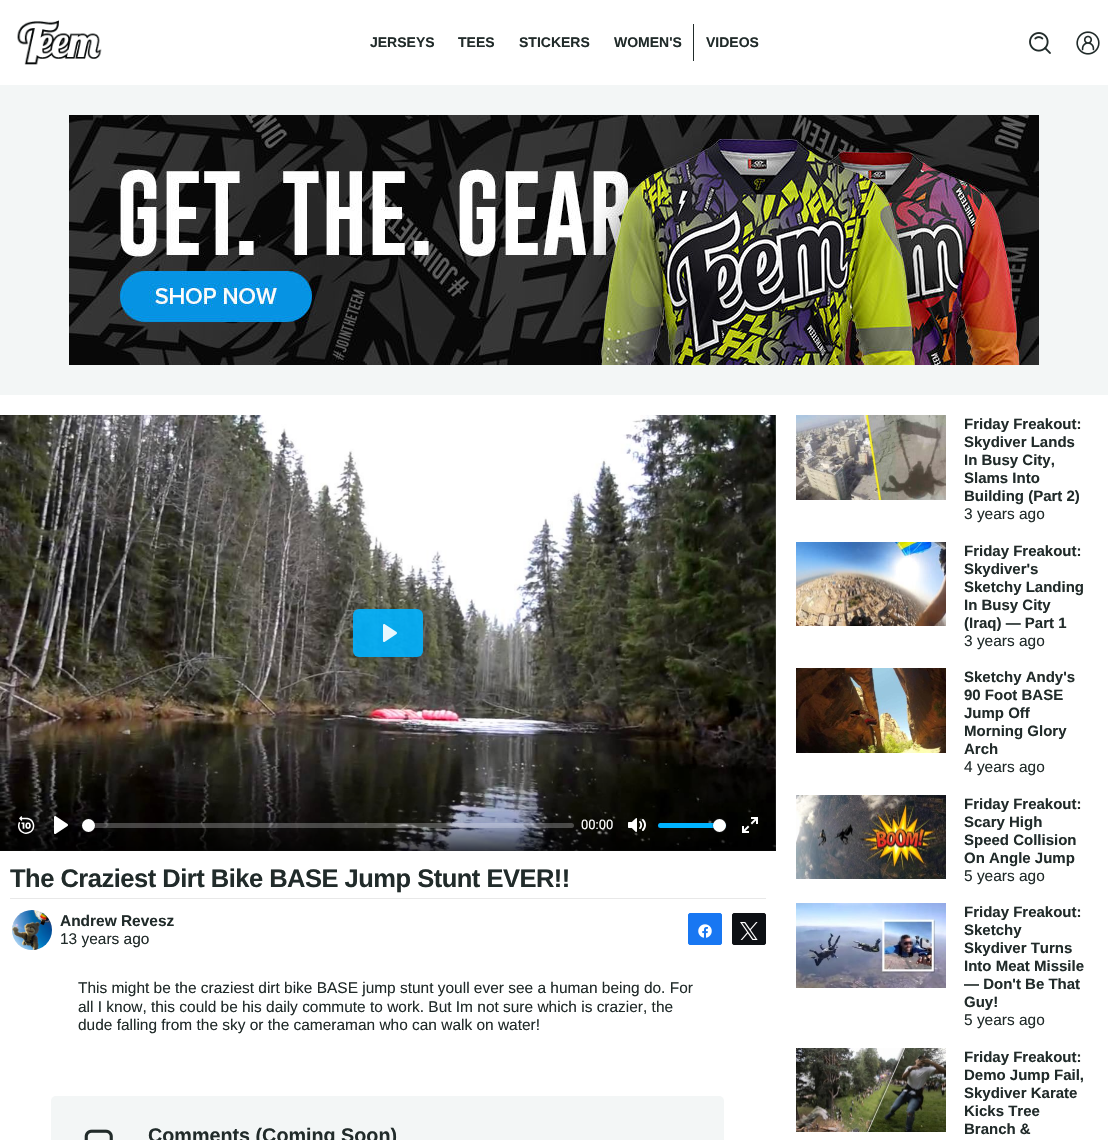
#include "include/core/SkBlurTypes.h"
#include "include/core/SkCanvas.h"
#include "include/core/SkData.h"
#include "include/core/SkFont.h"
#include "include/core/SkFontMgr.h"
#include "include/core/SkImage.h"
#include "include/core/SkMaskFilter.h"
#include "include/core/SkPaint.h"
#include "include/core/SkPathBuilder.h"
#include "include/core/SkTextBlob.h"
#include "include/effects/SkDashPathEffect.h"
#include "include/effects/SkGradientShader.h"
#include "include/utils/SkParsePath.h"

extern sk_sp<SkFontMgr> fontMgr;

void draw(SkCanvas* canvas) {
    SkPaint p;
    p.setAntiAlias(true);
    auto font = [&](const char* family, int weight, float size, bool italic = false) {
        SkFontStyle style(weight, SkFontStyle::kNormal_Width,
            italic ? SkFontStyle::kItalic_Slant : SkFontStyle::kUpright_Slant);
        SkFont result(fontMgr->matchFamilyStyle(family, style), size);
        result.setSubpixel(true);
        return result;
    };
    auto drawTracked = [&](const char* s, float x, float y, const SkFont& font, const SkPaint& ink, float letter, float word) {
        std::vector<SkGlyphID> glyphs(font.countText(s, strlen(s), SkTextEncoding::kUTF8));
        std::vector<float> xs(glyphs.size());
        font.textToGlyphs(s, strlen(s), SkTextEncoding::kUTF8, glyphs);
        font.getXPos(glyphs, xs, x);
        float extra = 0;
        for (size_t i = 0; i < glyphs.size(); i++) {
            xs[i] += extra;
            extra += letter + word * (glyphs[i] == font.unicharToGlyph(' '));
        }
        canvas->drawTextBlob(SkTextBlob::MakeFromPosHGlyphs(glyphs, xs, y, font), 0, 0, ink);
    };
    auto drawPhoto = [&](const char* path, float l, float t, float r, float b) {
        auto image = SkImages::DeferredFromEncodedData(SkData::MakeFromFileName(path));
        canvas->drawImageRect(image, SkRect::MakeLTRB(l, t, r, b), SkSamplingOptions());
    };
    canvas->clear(0xFFFFFFFF);
    drawPhoto("media/1.png", 17, 20, 102, 65);
    auto font1 = font("Liberation Sans", 700, 14);
    p.setColor(0xFF212B2A);
    {
        const struct { const char* s; float x, y; } items[] = {
            {"JERSEYS", 370, 47},
            {"TEES", 458, 47},
            {"STICKERS", 519, 47},
            {"WOMEN'S", 614, 47},
        };
        for (auto [s, x, y] : items) {
            canvas->drawString(s, x, y, font1, p);
        }
    }
    canvas->drawRect(SkRect::MakeLTRB(693, 24, 694, 61), p);
    canvas->drawString("VIDEOS", 706, 47, font1, p);
    drawPhoto("media/2.png", 1029, 32, 1051, 54);
    drawPhoto("media/3.png", 1076, 31, 1100, 55);
    p.setColor(0xFFF3F6F6);
    canvas->drawRect(SkRect::MakeLTRB(0, 85, 1108, 395), p);
    drawPhoto("media/4.png", 69, 115, 1039, 365);
    drawPhoto("media/5.png", 0, 415, 776, 851);
    p.setColor(0xE600B3FF);
    canvas->drawRoundRect(SkRect::MakeLTRB(353, 609, 423, 657), 6, 6, p);
    drawPhoto("media/6.png", 383, 624, 397, 642);
    {
        const SkColor colors[] = {0x00000000, 0x26000000, 0x40000000, 0xBF000000};
        const float stops[] = {0, 0.33f, 0.67f, 1};
        const SkPoint ends[] = {{388, 774}, {388, 851}};
        p.setShader(SkGradientShader::MakeLinear(ends, colors, stops, 4, SkTileMode::kClamp));
        p.setAlpha(255);
    }
    canvas->drawRect(SkRect::MakeLTRB(0, 778, 776, 851), p);
    auto font2 = font("Roboto", 400, 10);
    p.setShader(nullptr);
    p.setColor(0xFF13110D);
    canvas->drawString("i", 36, 801, font2, p);
    drawPhoto("media/7.png", 18, 816, 35, 834);
    drawPhoto("media/8.png", 54, 816, 68, 834);
    p.setColor(0x40FFFFFF);
    canvas->drawRoundRect(SkRect::MakeLTRB(82, 823, 574, 828), 2.5f, 2.5f, p);
    p.setStyle(SkPaint::kStroke_Style);
    p.setStrokeWidth(1);
    p.setColor(0x3323282F);
    canvas->drawCircle(88.5f, 825.5f, 7, p);
    p.setStyle(SkPaint::kFill_Style);
    p.setColor(0xFFFFFFFF);
    canvas->drawCircle(88.5f, 825.5f, 6.5f, p);
    auto font3 = font("Roboto", 400, 13);
    canvas->drawString("00:00", 581, 829, font3, p);
    drawPhoto("media/9.png", 628, 818, 646, 832);
    p.setColor(0xFF00B3FF);
    canvas->drawRoundRect(SkRect::MakeLTRB(658, 823, 726, 828), 2.5f, 2.5f, p);
    p.setStyle(SkPaint::kStroke_Style);
    p.setColor(0x3323282F);
    canvas->drawCircle(719.5f, 825.5f, 7, p);
    p.setStyle(SkPaint::kFill_Style);
    p.setColor(0x2623282F);
    p.setMaskFilter(SkMaskFilter::MakeBlur(kNormal_SkBlurStyle, 0.5f));
    canvas->drawRoundRect(SkRect::MakeLTRB(713, 820, 726, 833), 6.5f, 6.5f, p);
    p.setMaskFilter(nullptr);
    p.setColor(0xFFFFFFFF);
    canvas->drawCircle(719.5f, 825.5f, 6.5f, p);
    p.setColor(0xFF030401);
    canvas->drawPath(SkPathBuilder().moveTo(749.5f, 809.5f).lineTo(756, 809.5f).lineTo(753, 812.5f).close().detach(), p);
    drawPhoto("media/10.png", 742, 817, 758, 833);
    auto font4 = font("Liberation Sans", 700, 25.5f);
    p.setColor(0xFF212B2A);
    drawTracked("The Craziest Dirt Bike BASE Jump Stunt EVER!!", 10, 887, font4, p, -0.5f, 0);
    p.setColor(0xFFE8E8E8);
    canvas->drawRect(SkRect::MakeLTRB(10, 898, 766, 899), p);
    drawPhoto("media/11.png", 12, 910, 52, 950);
    auto font5 = font("Liberation Sans", 700, 15.45f);
    p.setColor(0xFF212B2A);
    canvas->drawString("Andrew Revesz", 60, 926, font5, p);
    auto font6 = font("Liberation Sans", 400, 15.45f);
    canvas->drawString("13 years ago", 60, 944, font6, p);
    p.setColor(0xFF1877F2);
    canvas->drawRoundRect(SkRect::MakeLTRB(688.5f, 913.5f, 721.5f, 944.5f), 1.5f, 1.5f, p);
    p.setStyle(SkPaint::kStroke_Style);
    canvas->drawRoundRect(SkRect::MakeLTRB(688.5f, 913.5f, 721.5f, 944.5f), 1.5f, 1.5f, p);
    drawPhoto("media/12.png", 698, 924, 712, 938);
    p.setStyle(SkPaint::kFill_Style);
    p.setColor(0xFF0D1014);
    canvas->drawRoundRect(SkRect::MakeLTRB(732.5f, 913.5f, 765.5f, 944.5f), 1.5f, 1.5f, p);
    p.setStyle(SkPaint::kStroke_Style);
    canvas->drawRoundRect(SkRect::MakeLTRB(732.5f, 913.5f, 765.5f, 944.5f), 1.5f, 1.5f, p);
    drawPhoto("media/13.png", 740, 922, 758, 940);
    p.setStyle(SkPaint::kFill_Style);
    p.setColor(0xFF212B2A);
    {
        const struct { const char* s; float x, y; } items[] = {
            {"This might be the craziest dirt bike BASE jump stunt youll ever see a human being do. For", 78, 993},
            {"all I know, this could be his daily commute to work. But Im not sure which is crazier, the", 78, 1012},
            {"dude falling from the sky or the cameraman who can walk on water!", 78, 1030},
        };
        for (auto [s, x, y] : items) {
            canvas->drawString(s, x, y, font6, p);
        }
    }
    p.setColor(0xFFF3F6F6);
    canvas->drawRoundRect(SkRect::MakeLTRB(51, 1096, 724, 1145), 5, 5, p);
    drawPhoto("media/14.png", 84, 1129, 113, 1140);
    auto font7 = font("Liberation Sans", 700, 19.75f);
    p.setColor(0xFF212B2A);
    canvas->drawString("Comments (Coming Soon)", 148, 1142, font7, p);
    drawPhoto("media/15.png", 796, 415, 946, 500);
    auto font8 = font("Liberation Sans", 700, 15);
    {
        const struct { const char* s; float x, y; } items[] = {
            {"Friday Freakout:", 964, 429},
            {"Skydiver Lands", 964, 447},
            {"In Busy City,", 964, 465},
            {"Slams Into", 964, 483},
            {"Building (Part 2)", 964, 501},
        };
        for (auto [s, x, y] : items) {
            canvas->drawString(s, x, y, font8, p);
        }
    }
    canvas->drawString("3 years ago", 964, 519, font6, p);
    drawPhoto("media/16.png", 796, 542, 946, 626);
    {
        const struct { const char* s; float x, y; } items[] = {
            {"Friday Freakout:", 964, 556},
            {"Skydiver's", 964, 574},
            {"Sketchy Landing", 964, 592},
            {"In Busy City", 964, 610},
            {"(Iraq) — Part 1", 964, 628},
        };
        for (auto [s, x, y] : items) {
            canvas->drawString(s, x, y, font8, p);
        }
    }
    canvas->drawString("3 years ago", 964, 646, font6, p);
    drawPhoto("media/17.png", 796, 668, 946, 753);
    {
        const struct { const char* s; float x, y; } items[] = {
            {"Sketchy Andy's", 964, 682},
            {"90 Foot BASE", 964, 700},
            {"Jump Off", 964, 718},
            {"Morning Glory", 964, 736},
            {"Arch", 964, 754},
        };
        for (auto [s, x, y] : items) {
            canvas->drawString(s, x, y, font8, p);
        }
    }
    canvas->drawString("4 years ago", 964, 772, font6, p);
    drawPhoto("media/18.png", 796, 795, 946, 879);
    {
        const struct { const char* s; float x, y; } items[] = {
            {"Friday Freakout:", 964, 809},
            {"Scary High", 964, 827},
            {"Speed Collision", 964, 845},
            {"On Angle Jump", 964, 863},
        };
        for (auto [s, x, y] : items) {
            canvas->drawString(s, x, y, font8, p);
        }
    }
    canvas->drawString("5 years ago", 964, 881, font6, p);
    drawPhoto("media/19.png", 796, 903, 946, 988);
    {
        const struct { const char* s; float x, y; } items[] = {
            {"Friday Freakout:", 964, 917},
            {"Sketchy", 964, 935},
            {"Skydiver Turns", 964, 953},
            {"Into Meat Missile", 964, 971},
            {"— Don't Be That", 964, 989},
            {"Guy!", 964, 1007},
        };
        for (auto [s, x, y] : items) {
            canvas->drawString(s, x, y, font8, p);
        }
    }
    canvas->drawString("5 years ago", 964, 1025, font6, p);
    drawPhoto("media/20.png", 796, 1048, 946, 1132);
    {
        const struct { const char* s; float x, y; } items[] = {
            {"Friday Freakout:", 964, 1062},
            {"Demo Jump Fail,", 964, 1080},
            {"Skydiver Karate", 964, 1098},
            {"Kicks Tree", 964, 1116},
            {"Branch &", 964, 1134},
        };
        for (auto [s, x, y] : items) {
            canvas->drawString(s, x, y, font8, p);
        }
    }
}
